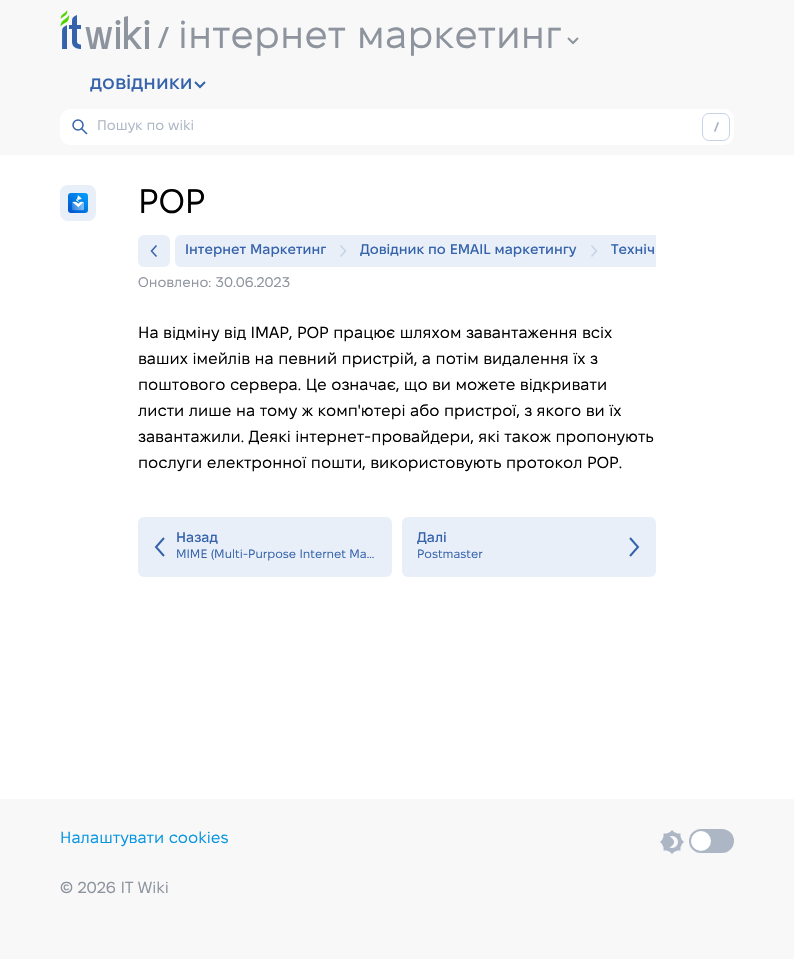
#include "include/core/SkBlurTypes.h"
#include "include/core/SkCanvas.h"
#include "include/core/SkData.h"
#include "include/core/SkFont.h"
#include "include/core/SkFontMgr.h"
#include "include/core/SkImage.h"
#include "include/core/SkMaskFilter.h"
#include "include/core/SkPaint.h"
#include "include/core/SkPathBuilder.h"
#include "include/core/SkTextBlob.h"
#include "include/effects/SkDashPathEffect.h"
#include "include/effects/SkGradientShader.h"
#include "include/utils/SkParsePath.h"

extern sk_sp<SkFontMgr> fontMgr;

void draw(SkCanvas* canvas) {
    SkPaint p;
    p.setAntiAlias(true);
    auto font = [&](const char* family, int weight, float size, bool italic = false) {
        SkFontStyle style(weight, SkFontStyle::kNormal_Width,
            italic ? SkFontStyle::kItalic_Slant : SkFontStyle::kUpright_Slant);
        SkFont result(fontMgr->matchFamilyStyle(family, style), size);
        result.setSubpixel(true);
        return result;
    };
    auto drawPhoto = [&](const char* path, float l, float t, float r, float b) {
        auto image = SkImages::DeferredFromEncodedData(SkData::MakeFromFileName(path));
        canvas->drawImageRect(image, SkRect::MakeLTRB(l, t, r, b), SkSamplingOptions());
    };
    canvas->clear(0xFFFFFFFF);
    p.setColor(0xFFF8F8F8);
    canvas->drawRect(SkRect::MakeLTRB(0, 0, 794, 155), p);
    drawPhoto("media/1.png", 60, 10, 150, 49);
    p.setColor(0xFF8D949E);
    canvas->drawPath(SkPathBuilder(SkPathFillType::kEvenOdd).moveTo(158, 48).lineTo(166, 27).lineTo(169, 27).lineTo(161, 48).close().detach(), p);
    auto font1 = font("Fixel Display", 400, 39);
    canvas->drawString("інтернет маркетинг", 178, 48, font1, p);
    p.setStyle(SkPaint::kStroke_Style);
    p.setStrokeWidth(2);
    canvas->drawPath(SkPathBuilder().moveTo(568, 38).lineTo(573, 43).lineTo(578, 38).detach(), p);
    auto font2 = font("Fixel Display", 500, 20);
    p.setStyle(SkPaint::kFill_Style);
    p.setColor(0xFF3462AB);
    canvas->drawString("довідники", 90, 89, font2, p);
    p.setStyle(SkPaint::kStroke_Style);
    canvas->drawPath(SkPathBuilder().moveTo(195, 82).lineTo(200, 87).lineTo(205, 82).detach(), p);
    p.setStyle(SkPaint::kFill_Style);
    p.setColor(0xFFFFFFFF);
    canvas->drawRoundRect(SkRect::MakeLTRB(60, 109, 734, 145), 10, 10, p);
    p.setStyle(SkPaint::kStroke_Style);
    p.setStrokeWidth(1.5f);
    p.setColor(0xFF3462AB);
    canvas->drawCircle(78, 125, 5, p);
    canvas->drawPath(SkPathBuilder().moveTo(81.5f, 128.5f).lineTo(87, 134).detach(), p);
    auto font3 = font("Fixel Display", 400, 14);
    p.setStyle(SkPaint::kFill_Style);
    p.setColor(0xFFACB6C5);
    canvas->drawString("Пошук по wiki", 97, 130, font3, p);
    p.setStyle(SkPaint::kStroke_Style);
    p.setStrokeWidth(1);
    p.setColor(0xFFC6D3E9);
    canvas->drawRoundRect(SkRect::MakeLTRB(702.5f, 113.5f, 729.5f, 140.5f), 6.5f, 6.5f, p);
    drawPhoto("media/2.png", 714, 122, 719, 132);
    p.setStyle(SkPaint::kFill_Style);
    p.setColor(0xFFE9EFF9);
    canvas->drawRoundRect(SkRect::MakeLTRB(60, 185, 96, 221), 8, 8, p);
    {
        const SkColor colors[] = {0xFF00A3FF, 0xFF0051CA};
        const float stops[] = {0, 1};
        const SkPoint ends[] = {{88, 193}, {68, 213}};
        p.setShader(SkGradientShader::MakeLinear(ends, colors, stops, 2, SkTileMode::kClamp));
        p.setAlpha(255);
    }
    canvas->drawRoundRect(SkRect::MakeLTRB(68, 193, 88, 213), 3, 3, p);
    drawPhoto("media/3.png", 72, 195, 84, 211);
    auto font4 = font("Fixel Display", 400, 34);
    p.setShader(nullptr);
    p.setColor(0xFF000000);
    canvas->drawString("POP", 138, 213, font4, p);
    p.setColor(0xFFE9EFF9);
    canvas->drawRoundRect(SkRect::MakeLTRB(138, 235, 170, 267), 6, 6, p);
    p.setStyle(SkPaint::kStroke_Style);
    p.setStrokeWidth(1.5f);
    p.setColor(0xFF3462AB);
    canvas->drawPath(SkPathBuilder().moveTo(156.5f, 256.5f).lineTo(151.5f, 251).lineTo(156.5f, 245.5f).detach(), p);
    p.setStyle(SkPaint::kFill_Style);
    p.setColor(0xFFE9EFF9);
    canvas->drawPath(SkPathBuilder().moveTo(181, 235).lineTo(656, 235).lineTo(656, 267).lineTo(181, 267).cubicTo(177.5f, 267, 175, 264.5f, 175, 261).lineTo(175, 241).cubicTo(175, 237.5f, 177.5f, 235, 181, 235).close().detach(), p);
    auto font5 = font("Fixel Display", 500, 14);
    p.setColor(0xFF3462AB);
    canvas->drawString("Інтернет Маркетинг", 185, 254, font5, p);
    p.setStyle(SkPaint::kStroke_Style);
    p.setColor(0xFFC6D3E9);
    canvas->drawPath(SkPathBuilder().moveTo(340.5f, 245.5f).lineTo(345.5f, 251).lineTo(340.5f, 256.5f).detach(), p);
    p.setStyle(SkPaint::kFill_Style);
    p.setColor(0xFF3462AB);
    canvas->drawString("Довідник по EMAIL маркетингу", 360, 254, font5, p);
    p.setStyle(SkPaint::kStroke_Style);
    p.setColor(0xFFC6D3E9);
    canvas->drawPath(SkPathBuilder().moveTo(591.5f, 245.5f).lineTo(596.5f, 251).lineTo(591.5f, 256.5f).detach(), p);
    p.setStyle(SkPaint::kFill_Style);
    p.setColor(0xFF3462AB);
    canvas->drawString("Техніч", 611, 254, font5, p);
    p.setColor(0xFF8D949E);
    canvas->drawString("Оновлено: 30.06.2023", 138, 287, font3, p);
    auto font6 = font("Fixel Display", 400, 16);
    p.setColor(0xFF000000);
    {
        const struct { const char* s; float x, y; } items[] = {
            {"На відміну від IMAP, POP працює шляхом завантаження всіх", 138, 338},
            {"ваших імейлів на певний пристрій, а потім видалення їх з", 138, 364},
            {"поштового сервера. Це означає, що ви можете відкривати", 138, 390},
            {"листи лише на тому ж комп'ютері або пристрої, з якого ви їх", 138, 416},
            {"завантажили. Деякі інтернет-провайдери, які також пропонують", 138, 442},
            {"послуги електронної пошти, використовують протокол POP.", 138, 468},
        };
        for (auto [s, x, y] : items) {
            canvas->drawString(s, x, y, font6, p);
        }
    }
    p.setColor(0xFFE9EFF9);
    canvas->drawRoundRect(SkRect::MakeLTRB(138, 517, 392, 577), 6, 6, p);
    p.setStyle(SkPaint::kStroke_Style);
    p.setStrokeWidth(2);
    p.setColor(0xFF3462AB);
    canvas->drawPath(SkPathBuilder().moveTo(164, 538).lineTo(156, 547).lineTo(164, 556).detach(), p);
    p.setStyle(SkPaint::kFill_Style);
    canvas->drawString("Назад", 176, 542, font5, p);
    auto font7 = font("Fixel Display", 400, 12);
    canvas->drawString("MIME (Multi-Purpose Internet Ma…", 176, 558, font7, p);
    p.setColor(0xFFE9EFF9);
    canvas->drawRoundRect(SkRect::MakeLTRB(402, 517, 656, 577), 6, 6, p);
    p.setColor(0xFF3462AB);
    canvas->drawString("Далі", 417, 542, font5, p);
    p.setStyle(SkPaint::kStroke_Style);
    canvas->drawPath(SkPathBuilder().moveTo(630, 556).lineTo(638, 547).lineTo(630, 538).detach(), p);
    p.setStyle(SkPaint::kFill_Style);
    canvas->drawString("Postmaster", 417, 558, font7, p);
    p.setColor(0xFFF8F8F8);
    canvas->drawRect(SkRect::MakeLTRB(0, 799, 794, 959), p);
    p.setColor(0xFF0795E2);
    canvas->drawString("Налаштувати cookies", 60, 843, font6, p);
    p.setColor(0xFF8D949E);
    canvas->drawString("© 2026 IT Wiki", 60, 893, font6, p);
    drawPhoto("media/4.png", 660, 830, 684, 854);
    p.setColor(0xFFACB6C5);
    canvas->drawRoundRect(SkRect::MakeLTRB(689, 829, 734, 853), 12, 12, p);
    p.setColor(0xFFFFFFFF);
    canvas->drawCircle(701, 841, 10, p);
}
